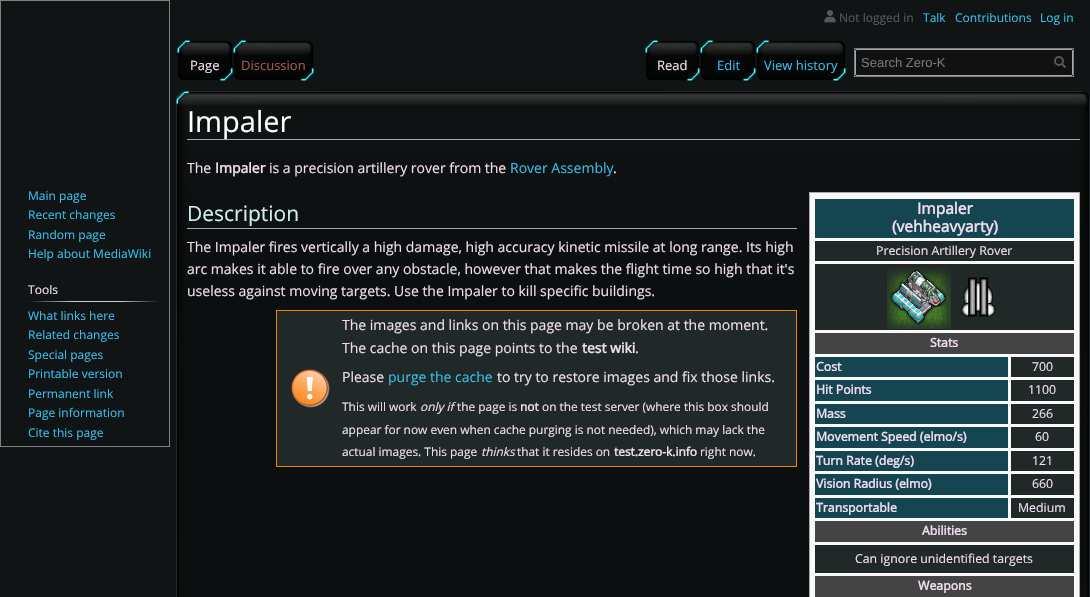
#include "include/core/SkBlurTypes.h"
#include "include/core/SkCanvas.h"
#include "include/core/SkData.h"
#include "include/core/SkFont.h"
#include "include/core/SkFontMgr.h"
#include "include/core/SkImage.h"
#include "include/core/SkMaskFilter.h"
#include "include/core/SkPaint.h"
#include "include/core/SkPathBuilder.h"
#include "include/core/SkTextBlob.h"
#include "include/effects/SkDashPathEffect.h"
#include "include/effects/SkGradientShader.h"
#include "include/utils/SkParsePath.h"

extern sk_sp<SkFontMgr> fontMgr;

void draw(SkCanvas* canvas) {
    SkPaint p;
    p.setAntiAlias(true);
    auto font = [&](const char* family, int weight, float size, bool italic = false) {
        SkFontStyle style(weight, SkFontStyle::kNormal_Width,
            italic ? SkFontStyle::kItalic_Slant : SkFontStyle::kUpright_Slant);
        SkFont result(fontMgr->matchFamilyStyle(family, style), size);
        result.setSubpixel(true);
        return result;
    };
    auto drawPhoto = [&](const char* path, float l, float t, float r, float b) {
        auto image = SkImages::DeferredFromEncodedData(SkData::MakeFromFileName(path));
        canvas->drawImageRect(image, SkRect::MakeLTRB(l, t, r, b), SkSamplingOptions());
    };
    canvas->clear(0xFF101414);
    drawPhoto("media/1.png", 824, 10, 836, 23);
    auto font1 = font("Open Sans", 400, 12);
    p.setColor(0xFF54595D);
    canvas->drawString("Not logged in", 839, 22, font1, p);
    p.setColor(0xFF38BFEC);
    {
        const struct { const char* s; float x, y; } items[] = {
            {"Talk", 923, 22},
            {"Contributions", 955, 22},
            {"Log in", 1040, 22},
        };
        for (auto [s, x, y] : items) {
            canvas->drawString(s, x, y, font1, p);
        }
    }
    drawPhoto("media/2.png", 177, 40, 233, 81);
    auto font2 = font("Open Sans", 400, 13);
    p.setColor(0xFFEEDDEE);
    canvas->drawString("Page", 190, 70, font2, p);
    drawPhoto("media/3.png", 233, 40, 314, 81);
    p.setColor(0xFFA55858);
    canvas->drawString("Discussion", 241, 70, font2, p);
    drawPhoto("media/4.png", 645, 40, 700, 81);
    p.setColor(0xFFEEDDEE);
    canvas->drawString("Read", 657, 70, font2, p);
    drawPhoto("media/5.png", 700, 40, 756, 81);
    p.setColor(0xFF38BFEC);
    canvas->drawString("Edit", 717, 70, font2, p);
    drawPhoto("media/6.png", 756, 40, 846, 81);
    canvas->drawString("View history", 764, 70, font2, p);
    p.setColor(0xFF111111);
    canvas->drawRect(SkRect::MakeLTRB(854.5f, 48.5f, 1073.5f, 76.5f), p);
    p.setStyle(SkPaint::kStroke_Style);
    p.setStrokeWidth(1);
    p.setColor(0xFF808080);
    canvas->drawRect(SkRect::MakeLTRB(854.5f, 48.5f, 1073.5f, 76.5f), p);
    p.setColor(0xFFA2A9B1);
    canvas->drawRoundRect(SkRect::MakeLTRB(855.5f, 49.5f, 1072.5f, 75.5f), 1.5f, 1.5f, p);
    auto font3 = font("Liberation Sans", 400, 13);
    p.setStyle(SkPaint::kFill_Style);
    p.setColor(0xFF72777D);
    canvas->drawString("Search Zero-K", 861, 67, font3, p);
    p.setColor(0xFF111111);
    canvas->drawRect(SkRect::MakeLTRB(1071, 50, 1072, 75), p);
    p.setStyle(SkPaint::kStroke_Style);
    p.setStrokeWidth(2);
    p.setColor(0xFF54595D);
    canvas->drawPath(SkPathBuilder().moveTo(1065.5f, 67.5f).lineTo(1061.5f, 63.5f).detach(), p);
    canvas->drawCircle(1059, 61, 4, p);
    p.setStrokeWidth(1);
    p.setColor(0xFF808080);
    canvas->drawRect(SkRect::MakeLTRB(0.5f, 0.5f, 169.5f, 446.5f), p);
    p.setStyle(SkPaint::kFill_Style);
    p.setColor(0xFF38BFEC);
    {
        const struct { const char* s; float x, y; } items[] = {
            {"Main page", 28, 200},
            {"Recent changes", 28, 219},
            {"Random page", 28, 239},
            {"Help about MediaWiki", 28, 258},
        };
        for (auto [s, x, y] : items) {
            canvas->drawString(s, x, y, font1, p);
        }
    }
    p.setColor(0xFFEEDDEE);
    canvas->drawString("Tools", 28, 294, font1, p);
    {
        const SkColor colors[] = {0xFF101414, 0xFFC8CCD1, 0xFFC8CCD1, 0xFF101414};
        const float stops[] = {0, 0.35f, 0.7f, 1};
        const SkPoint ends[] = {{28, 302}, {159, 302}};
        p.setShader(SkGradientShader::MakeLinear(ends, colors, stops, 4, SkTileMode::kClamp));
        p.setAlpha(255);
    }
    canvas->drawRect(SkRect::MakeLTRB(28, 301, 159, 302), p);
    p.setShader(nullptr);
    p.setColor(0xFF38BFEC);
    {
        const struct { const char* s; float x, y; } items[] = {
            {"What links here", 28, 320},
            {"Related changes", 28, 339},
            {"Special pages", 28, 359},
            {"Printable version", 28, 378},
            {"Permanent link", 28, 398},
            {"Page information", 28, 417},
            {"Cite this page", 28, 437},
        };
        for (auto [s, x, y] : items) {
            canvas->drawString(s, x, y, font1, p);
        }
    }
    p.setColor(0xFF283030);
    canvas->drawRoundRect(SkRect::MakeLTRB(176, 91, 1090, 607), 10, 10, p);
    drawPhoto("media/7.png", 176, 91, 1090, 597);
    p.setColor(0xFFA2A9B1);
    canvas->drawRect(SkRect::MakeLTRB(187, 139, 1080, 140), p);
    auto font4 = font("Open Sans", 400, 29);
    p.setColor(0xFFFFFFFF);
    canvas->drawString("Impaler", 187, 132, font4, p);
    auto font5 = font("Open Sans", 400, 14);
    p.setColor(0xFFEEDDEE);
    canvas->drawString("The", 187, 173, font5, p);
    auto font6 = font("Open Sans", 700, 14);
    canvas->drawString("Impaler", 215, 173, font6, p);
    canvas->drawString("is a precision artillery rover from the", 269, 173, font5, p);
    p.setColor(0xFF38BFEC);
    canvas->drawString("Rover Assembly", 510, 173, font5, p);
    p.setColor(0xFFEEDDEE);
    canvas->drawString(".", 613, 173, font5, p);
    p.setColor(0xFFA2A9B1);
    canvas->drawRect(SkRect::MakeLTRB(187, 228, 797, 229), p);
    auto font7 = font("Open Sans", 400, 21);
    p.setColor(0xFFCCEEEE);
    canvas->drawString("Description", 187, 221, font7, p);
    p.setColor(0xFFF9F9F9);
    canvas->drawRect(SkRect::MakeLTRB(809.5f, 192.5f, 1079.5f, 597.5f), p);
    p.setStyle(SkPaint::kStroke_Style);
    p.setColor(0xFFAAAAAA);
    canvas->drawRect(SkRect::MakeLTRB(809.5f, 192.5f, 1079.5f, 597.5f), p);
    p.setStyle(SkPaint::kFill_Style);
    p.setColor(0xFF154550);
    canvas->drawRect(SkRect::MakeLTRB(815, 199, 1074, 238), p);
    auto font8 = font("Open Sans", 700, 15.5f);
    p.setColor(0xFFEEDDEE);
    canvas->drawString("Impaler", 917, 214, font8, p);
    canvas->drawString("(vehheavyarty)", 892, 232, font8, p);
    p.setColor(0xFF202828);
    canvas->drawRect(SkRect::MakeLTRB(815, 241, 1074, 261), p);
    auto font9 = font("Open Sans", 400, 12.3f);
    p.setColor(0xFFEEDDEE);
    canvas->drawString("Precision Artillery Rover", 876, 255, font9, p);
    p.setColor(0xFF202828);
    canvas->drawRect(SkRect::MakeLTRB(815, 264, 1074, 330), p);
    drawPhoto("media/8.png", 887, 267, 951, 329);
    drawPhoto("media/9.png", 961, 277, 996, 317);
    p.setColor(0xFF444444);
    canvas->drawRect(SkRect::MakeLTRB(815, 333, 1074, 354), p);
    auto font10 = font("Open Sans", 700, 12.3f);
    p.setColor(0xFFEEDDEE);
    canvas->drawString("Stats", 930, 347, font10, p);
    p.setColor(0xFF154550);
    canvas->drawRect(SkRect::MakeLTRB(815, 357, 1008, 377), p);
    p.setColor(0xFFEEDDEE);
    canvas->drawString("Cost", 816, 371, font10, p);
    p.setColor(0xFF202828);
    canvas->drawRect(SkRect::MakeLTRB(1011, 357, 1074, 377), p);
    p.setColor(0xFFEEDDEE);
    canvas->drawString("700", 1032, 371, font9, p);
    p.setColor(0xFF154550);
    canvas->drawRect(SkRect::MakeLTRB(815, 380, 1008, 401), p);
    p.setColor(0xFFEEDDEE);
    canvas->drawString("Hit Points", 816, 394, font10, p);
    p.setColor(0xFF202828);
    canvas->drawRect(SkRect::MakeLTRB(1011, 380, 1074, 401), p);
    p.setColor(0xFFEEDDEE);
    canvas->drawString("1100", 1028, 394, font9, p);
    p.setColor(0xFF154550);
    canvas->drawRect(SkRect::MakeLTRB(815, 404, 1008, 424), p);
    p.setColor(0xFFEEDDEE);
    canvas->drawString("Mass", 816, 418, font10, p);
    p.setColor(0xFF202828);
    canvas->drawRect(SkRect::MakeLTRB(1011, 404, 1074, 424), p);
    p.setColor(0xFFEEDDEE);
    canvas->drawString("266", 1032, 418, font9, p);
    p.setColor(0xFF154550);
    canvas->drawRect(SkRect::MakeLTRB(815, 427, 1008, 448), p);
    p.setColor(0xFFEEDDEE);
    canvas->drawString("Movement Speed (elmo/s)", 816, 441, font10, p);
    p.setColor(0xFF202828);
    canvas->drawRect(SkRect::MakeLTRB(1011, 427, 1074, 448), p);
    p.setColor(0xFFEEDDEE);
    canvas->drawString("60", 1035, 441, font9, p);
    p.setColor(0xFF154550);
    canvas->drawRect(SkRect::MakeLTRB(815, 451, 1008, 471), p);
    p.setColor(0xFFEEDDEE);
    canvas->drawString("Turn Rate (deg/s)", 816, 465, font10, p);
    p.setColor(0xFF202828);
    canvas->drawRect(SkRect::MakeLTRB(1011, 451, 1074, 471), p);
    p.setColor(0xFFEEDDEE);
    canvas->drawString("121", 1032, 465, font9, p);
    p.setColor(0xFF154550);
    canvas->drawRect(SkRect::MakeLTRB(815, 474, 1008, 495), p);
    p.setColor(0xFFEEDDEE);
    canvas->drawString("Vision Radius (elmo)", 816, 488, font10, p);
    p.setColor(0xFF202828);
    canvas->drawRect(SkRect::MakeLTRB(1011, 474, 1074, 495), p);
    p.setColor(0xFFEEDDEE);
    canvas->drawString("660", 1032, 488, font9, p);
    p.setColor(0xFF154550);
    canvas->drawRect(SkRect::MakeLTRB(815, 498, 1008, 518), p);
    p.setColor(0xFFEEDDEE);
    canvas->drawString("Transportable", 816, 512, font10, p);
    p.setColor(0xFF202828);
    canvas->drawRect(SkRect::MakeLTRB(1011, 498, 1074, 518), p);
    p.setColor(0xFFEEDDEE);
    canvas->drawString("Medium", 1018, 512, font9, p);
    p.setColor(0xFF444444);
    canvas->drawRect(SkRect::MakeLTRB(815, 521, 1074, 542), p);
    p.setColor(0xFFEEDDEE);
    canvas->drawString("Abilities", 922, 535, font10, p);
    p.setColor(0xFF202828);
    canvas->drawRect(SkRect::MakeLTRB(815, 545, 1074, 573), p);
    p.setColor(0xFFEEDDEE);
    canvas->drawString("Can ignore unidentified targets", 855, 563, font9, p);
    p.setColor(0xFF444444);
    canvas->drawRect(SkRect::MakeLTRB(815, 576, 1074, 597), p);
    p.setColor(0xFFEEDDEE);
    canvas->drawString("Weapons", 918, 590, font10, p);
    {
        const struct { const char* s; float x, y; } items[] = {
            {"The Impaler fires vertically a high damage, high accuracy kinetic missile at long range. Its high", 187, 252},
            {"arc makes it able to fire over any obstacle, however that makes the flight time so high that it's", 187, 274},
            {"useless against moving targets. Use the Impaler to kill specific buildings.", 187, 296},
        };
        for (auto [s, x, y] : items) {
            canvas->drawString(s, x, y, font5, p);
        }
    }
    {
        const struct { float l, t, r, b; SkColor color; } items[] = {
            {276, 310, 797, 311, 0xFFF28500},
            {796, 310, 797, 467, 0xFFF28500},
            {276, 466, 797, 467, 0xFFF28500},
            {276, 310, 277, 467, 0xFFF28500},
            {277, 311, 796, 466, 0xFF202828},
        };
        for (auto [l, t, r, b, color] : items) {
            p.setColor(color);
            canvas->drawRect(SkRect::MakeLTRB(l, t, r, b), p);
        }
    }
    drawPhoto("media/10.png", 291, 369, 330, 408);
    p.setColor(0xFFEEDDEE);
    canvas->drawString("The images and links on this page may be broken at the moment.", 342, 330, font5, p);
    canvas->drawString("The cache on this page points to the", 342, 353, font5, p);
    canvas->drawString("test wiki", 582, 353, font6, p);
    canvas->drawString(".", 635, 353, font5, p);
    canvas->drawString("Please", 342, 382, font5, p);
    p.setColor(0xFF38BFEC);
    canvas->drawString("purge the cache", 388, 382, font5, p);
    p.setColor(0xFFEEDDEE);
    canvas->drawString("to try to restore images and fix those links.", 497, 382, font5, p);
    auto font11 = font("Open Sans", 400, 11.9f);
    canvas->drawString("This will work", 342, 411, font11, p);
    auto font12 = font("Open Sans", 400, 11.9f, true);
    canvas->drawString("only if", 420, 411, font12, p);
    canvas->drawString("the page is", 457, 411, font11, p);
    auto font13 = font("Open Sans", 700, 11.9f);
    canvas->drawString("not", 520, 411, font13, p);
    {
        const struct { const char* s; float x, y; } items[] = {
            {"on the test server (where this box should", 542, 411},
            {"appear for now even when cache purging is not needed), which may lack the", 342, 434},
            {"actual images. This page", 342, 456},
        };
        for (auto [s, x, y] : items) {
            canvas->drawString(s, x, y, font11, p);
        }
    }
    canvas->drawString("thinks", 481, 456, font12, p);
    canvas->drawString("that it resides on", 517, 456, font11, p);
    canvas->drawString("test.zero-k.info", 614, 456, font13, p);
    canvas->drawString("right now.", 700, 456, font11, p);
}
